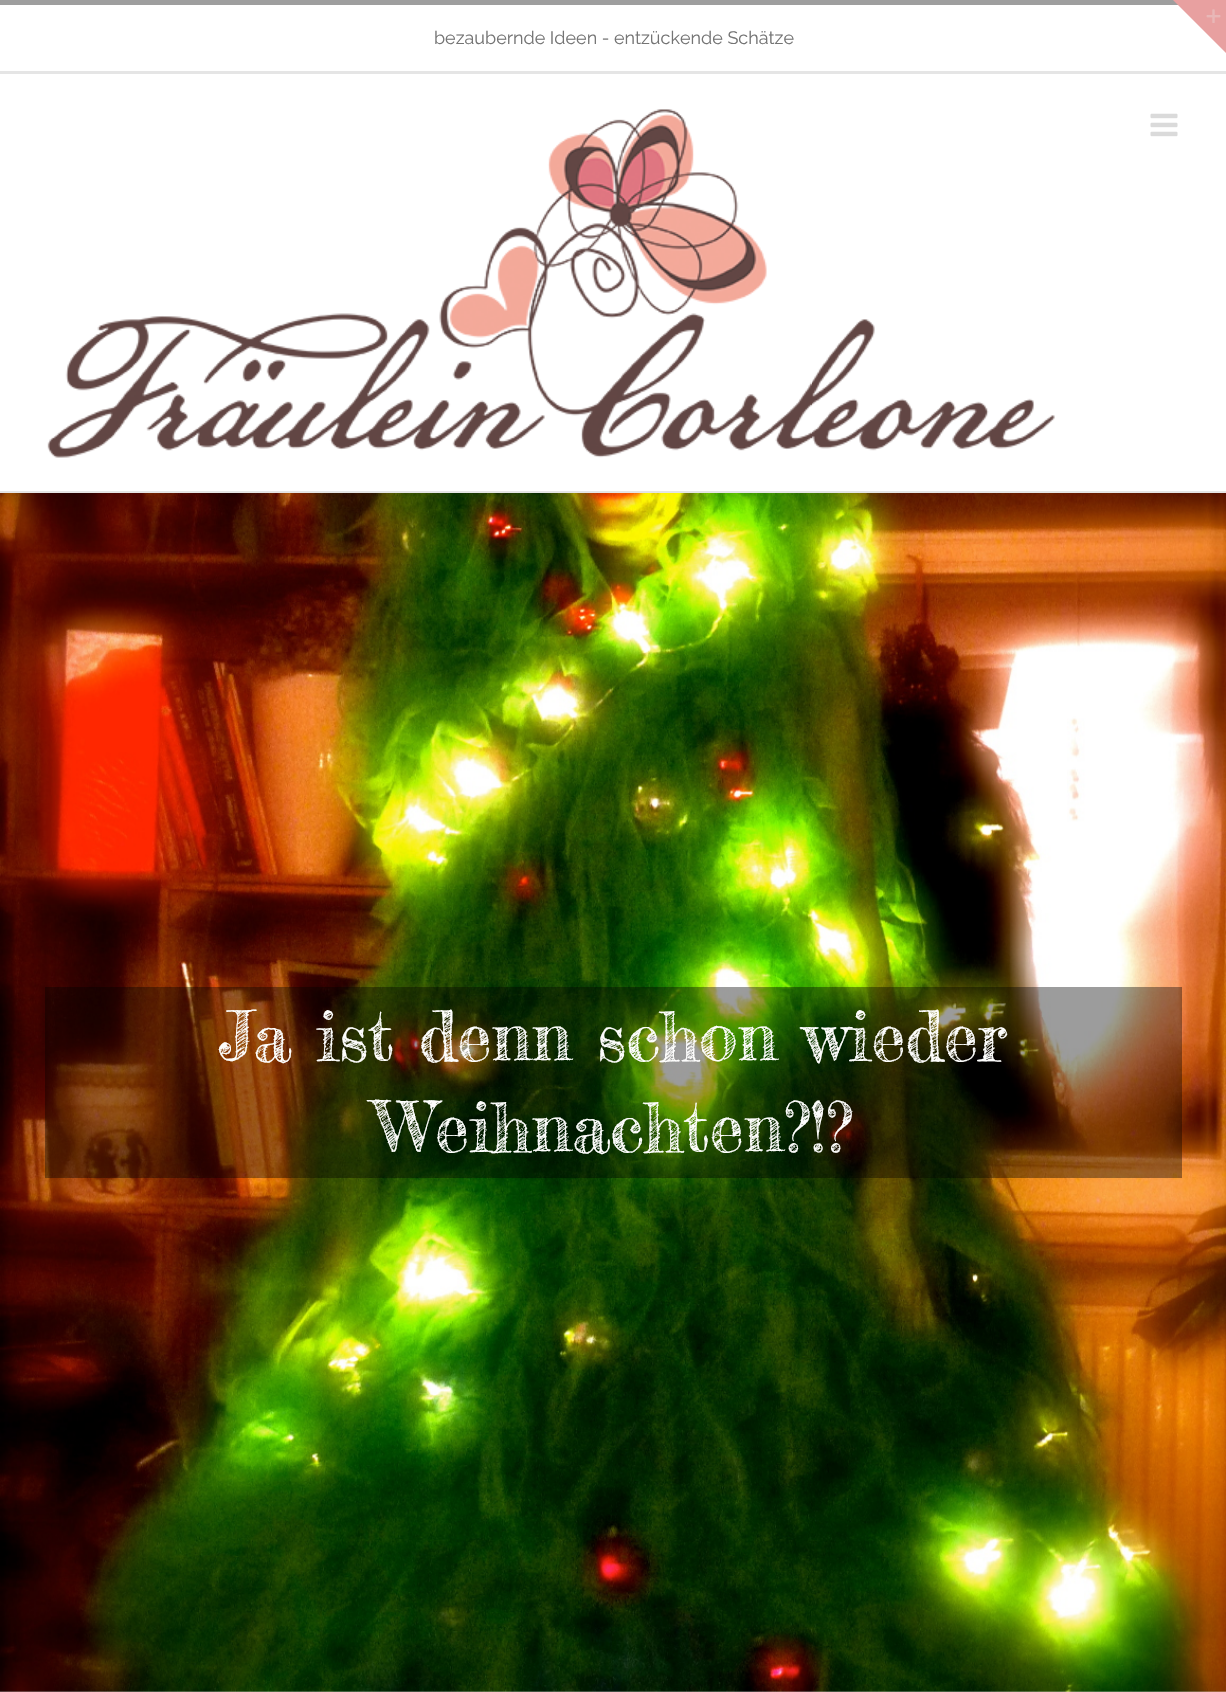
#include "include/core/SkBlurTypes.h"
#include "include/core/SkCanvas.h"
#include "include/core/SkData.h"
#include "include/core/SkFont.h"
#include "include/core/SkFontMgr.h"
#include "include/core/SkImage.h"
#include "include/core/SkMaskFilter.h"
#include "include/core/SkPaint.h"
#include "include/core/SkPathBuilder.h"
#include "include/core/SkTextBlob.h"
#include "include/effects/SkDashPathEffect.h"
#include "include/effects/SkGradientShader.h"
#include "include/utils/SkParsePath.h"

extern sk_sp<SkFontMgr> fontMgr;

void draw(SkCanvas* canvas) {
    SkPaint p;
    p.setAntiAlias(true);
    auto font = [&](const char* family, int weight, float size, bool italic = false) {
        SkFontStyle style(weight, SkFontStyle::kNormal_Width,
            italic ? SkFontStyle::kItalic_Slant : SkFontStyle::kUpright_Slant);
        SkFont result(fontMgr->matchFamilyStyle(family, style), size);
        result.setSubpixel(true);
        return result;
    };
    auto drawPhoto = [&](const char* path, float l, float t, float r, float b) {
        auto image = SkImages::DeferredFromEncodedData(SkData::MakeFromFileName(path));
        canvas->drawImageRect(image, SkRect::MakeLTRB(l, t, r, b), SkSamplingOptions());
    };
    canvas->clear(0xFFFFFFFF);
    p.setColor(0xFF9E9E9E);
    canvas->drawRect(SkRect::MakeLTRB(0, 0, 1178, 5), p);
    p.setColor(0xFFE5E5E5);
    canvas->drawRect(SkRect::MakeLTRB(0, 71, 1226, 74), p);
    auto font1 = font("Raleway", 400, 18);
    p.setColor(0xFF747474);
    canvas->drawString("bezaubernde Ideen - entzückende Schätze", 434, 44, font1, p);
    p.setColor(0xFFE5E5E5);
    canvas->drawRect(SkRect::MakeLTRB(0, 491, 1226, 493), p);
    drawPhoto("media/1.png", 47, 109, 1055, 458);
    drawPhoto("media/2.png", 1150, 113, 1178, 137);
    p.setColor(0xFFE8A0A0);
    canvas->drawPath(SkPathBuilder().moveTo(1173, 0).lineTo(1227, 0).lineTo(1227, 54).close().detach(), p);
    drawPhoto("media/3.png", 1206, 9, 1221, 23);
    drawPhoto("media/4.png", 0, 493, 1226, 1692);
    p.setColor(0x63000000);
    canvas->drawRect(SkRect::MakeLTRB(45, 987, 1182, 1178), p);
    auto font2 = font("Fredericka the Great", 400, 68.6f);
    p.setColor(0xFFFDFDFC);
    canvas->drawString("Ja ist denn schon wieder", 219, 1061, font2, p);
    canvas->drawString("Weihnachten?!?", 375, 1152, font2, p);
}
